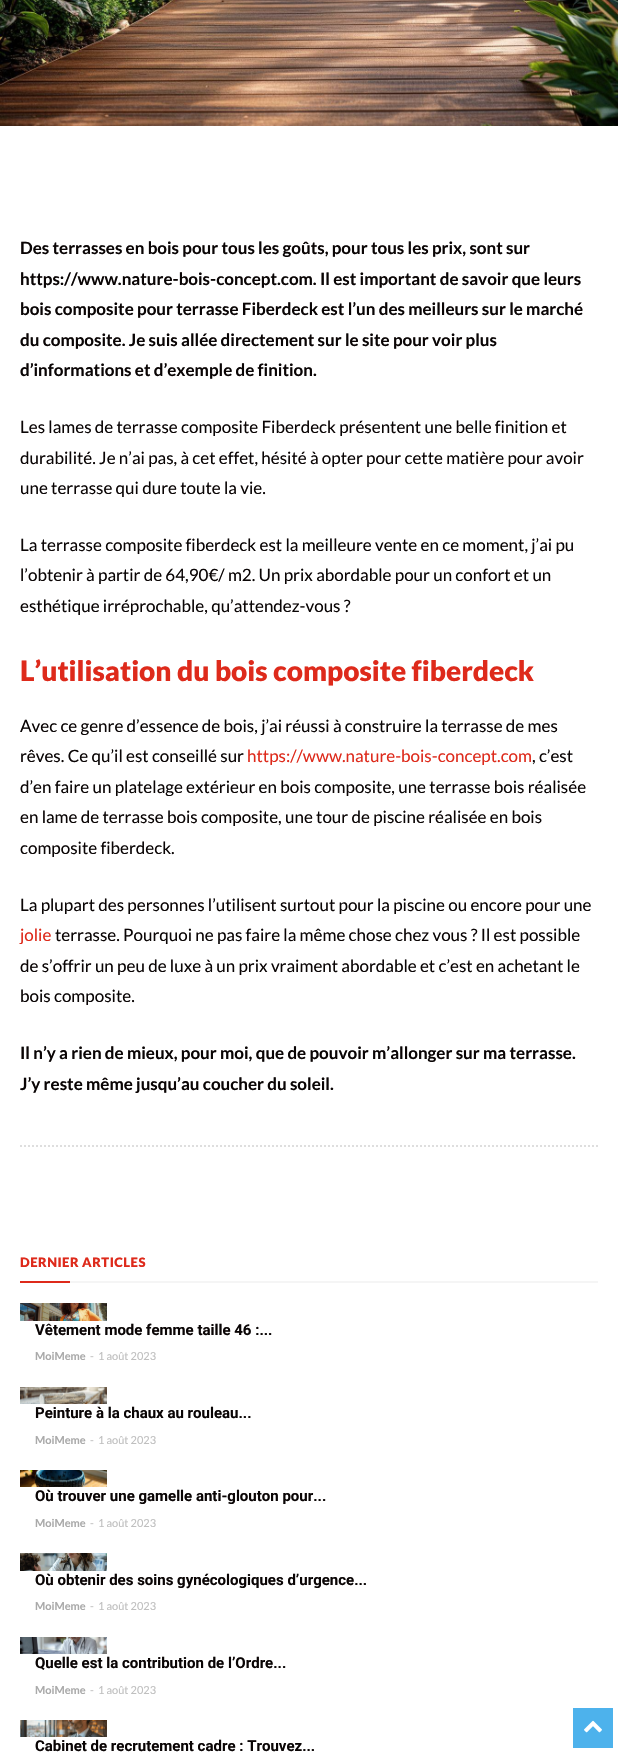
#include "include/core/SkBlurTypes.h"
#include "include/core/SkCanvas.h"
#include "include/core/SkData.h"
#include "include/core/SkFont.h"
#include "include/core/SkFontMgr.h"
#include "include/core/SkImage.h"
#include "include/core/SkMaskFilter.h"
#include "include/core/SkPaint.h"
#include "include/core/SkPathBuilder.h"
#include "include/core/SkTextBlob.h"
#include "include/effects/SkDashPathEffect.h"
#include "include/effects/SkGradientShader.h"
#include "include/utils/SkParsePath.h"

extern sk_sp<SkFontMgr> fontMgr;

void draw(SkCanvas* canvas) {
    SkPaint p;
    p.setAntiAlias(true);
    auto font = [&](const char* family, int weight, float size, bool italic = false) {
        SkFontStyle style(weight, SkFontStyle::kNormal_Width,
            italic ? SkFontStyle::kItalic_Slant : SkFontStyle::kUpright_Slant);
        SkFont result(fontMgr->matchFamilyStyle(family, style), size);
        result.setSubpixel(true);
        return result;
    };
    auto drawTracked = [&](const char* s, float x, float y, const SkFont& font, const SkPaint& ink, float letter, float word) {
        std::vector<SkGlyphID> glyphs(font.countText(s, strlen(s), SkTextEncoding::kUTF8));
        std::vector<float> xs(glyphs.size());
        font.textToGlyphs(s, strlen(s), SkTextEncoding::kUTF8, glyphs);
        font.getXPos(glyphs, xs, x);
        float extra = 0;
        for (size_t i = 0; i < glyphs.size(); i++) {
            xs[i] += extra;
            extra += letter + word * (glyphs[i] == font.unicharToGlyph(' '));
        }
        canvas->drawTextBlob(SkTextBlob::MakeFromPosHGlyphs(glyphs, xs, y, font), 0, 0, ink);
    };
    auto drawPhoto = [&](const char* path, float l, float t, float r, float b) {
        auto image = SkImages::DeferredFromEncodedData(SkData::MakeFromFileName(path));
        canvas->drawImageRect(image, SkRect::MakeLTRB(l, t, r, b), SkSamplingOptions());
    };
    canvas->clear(0xFFFFFFFF);
    drawPhoto("media/1.png", 0, 0, 618, 126);
    auto font1 = font("Lato", 700, 17);
    p.setColor(0xFF0A0505);
    {
        const struct { const char* s; float x, y; } items[] = {
            {"Des terrasses en bois pour tous les goûts, pour tous les prix, sont sur", 20, 254},
            {"https://www.nature-bois-concept.com. Il est important de savoir que leurs", 20, 285},
            {"bois composite pour terrasse Fiberdeck est l’un des meilleurs sur le marché", 20, 315},
            {"du composite. Je suis allée directement sur le site pour voir plus", 20, 346},
            {"d’informations et d’exemple de finition.", 20, 376},
        };
        for (auto [s, x, y] : items) {
            canvas->drawString(s, x, y, font1, p);
        }
    }
    auto font2 = font("Lato", 400, 17);
    {
        const struct { const char* s; float x, y; } items[] = {
            {"Les lames de terrasse composite Fiberdeck présentent une belle finition et", 20, 433},
            {"durabilité. Je n’ai pas, à cet effet, hésité à opter pour cette matière pour avoir", 20, 464},
            {"une terrasse qui dure toute la vie.", 20, 494},
            {"La terrasse composite fiberdeck est la meilleure vente en ce moment, j’ai pu", 20, 551},
            {"l’obtenir à partir de 64,90€/ m2. Un prix abordable pour un confort et un", 20, 581},
            {"esthétique irréprochable, qu’attendez-vous ?", 20, 612},
        };
        for (auto [s, x, y] : items) {
            canvas->drawString(s, x, y, font2, p);
        }
    }
    auto font3 = font("Lato", 900, 28);
    p.setColor(0xFFDE2A1B);
    canvas->drawString("L’utilisation du bois composite fiberdeck", 20, 681, font3, p);
    p.setColor(0xFF0A0505);
    canvas->drawString("Avec ce genre d’essence de bois, j’ai réussi à construire la terrasse de mes", 20, 732, font2, p);
    canvas->drawString("rêves. Ce qu’il est conseillé sur", 20, 762, font2, p);
    p.setColor(0xFFDE2A1B);
    canvas->drawString("https://www.nature-bois-concept.com", 247, 762, font2, p);
    p.setColor(0xFF0A0505);
    {
        const struct { const char* s; float x, y; } items[] = {
            {", c’est", 532, 762},
            {"d’en faire un platelage extérieur en bois composite, une terrasse bois réalisée", 20, 793},
            {"en lame de terrasse bois composite, une tour de piscine réalisée en bois", 20, 823},
            {"composite fiberdeck.", 20, 854},
            {"La plupart des personnes l’utilisent surtout pour la piscine ou encore pour une", 20, 911},
        };
        for (auto [s, x, y] : items) {
            canvas->drawString(s, x, y, font2, p);
        }
    }
    p.setColor(0xFFDE2A1B);
    canvas->drawString("jolie", 20, 941, font2, p);
    p.setColor(0xFF0A0505);
    {
        const struct { const char* s; float x, y; } items[] = {
            {"terrasse. Pourquoi ne pas faire la même chose chez vous ? Il est possible", 55, 941},
            {"de s’offrir un peu de luxe à un prix vraiment abordable et c’est en achetant le", 20, 972},
            {"bois composite.", 20, 1002},
        };
        for (auto [s, x, y] : items) {
            canvas->drawString(s, x, y, font2, p);
        }
    }
    canvas->drawString("Il n’y a rien de mieux, pour moi, que de pouvoir m’allonger sur ma terrasse.", 20, 1059, font1, p);
    canvas->drawString("J’y reste même jusqu’au coucher du soleil.", 20, 1090, font1, p);
    p.setStyle(SkPaint::kStroke_Style);
    p.setStrokeWidth(2);
    p.setColor(0xFFDEDEDE);
    p.setPathEffect(SkDashPathEffect::Make({{2, 2}}, 0));
    canvas->drawPath(SkPathBuilder().moveTo(20, 1146).lineTo(598, 1146).detach(), p);
    p.setPathEffect(nullptr);
    auto font4 = font("Lato", 900, 13);
    p.setStyle(SkPaint::kFill_Style);
    p.setColor(0xFFDE2A1B);
    drawTracked("DERNIER ARTICLES", 20, 1267, font4, p, 0.5f, 0);
    canvas->drawRect(SkRect::MakeLTRB(20, 1281, 70, 1283), p);
    p.setColor(0xFFF5F5F5);
    canvas->drawRect(SkRect::MakeLTRB(70, 1281, 598, 1283), p);
    drawPhoto("media/2.png", 20, 1303, 107, 1321);
    auto font5 = font("Roboto", 700, 15);
    p.setColor(0xFF0A0505);
    canvas->drawString("Vêtement mode femme taille 46 :...", 35, 1335, font5, p);
    auto font6 = font("Lato", 700, 11);
    p.setColor(0xFFAAAAAA);
    canvas->drawString("MoiMeme", 35, 1360, font6, p);
    auto font7 = font("Lato", 400, 11);
    p.setColor(0xFFBFBFBF);
    canvas->drawString("-", 90, 1360, font7, p);
    canvas->drawString("1 août 2023", 98, 1360, font7, p);
    drawPhoto("media/3.png", 20, 1387, 107, 1404);
    p.setColor(0xFF0A0505);
    canvas->drawString("Peinture à la chaux au rouleau...", 35, 1418, font5, p);
    p.setColor(0xFFAAAAAA);
    canvas->drawString("MoiMeme", 35, 1444, font6, p);
    p.setColor(0xFFBFBFBF);
    canvas->drawString("-", 90, 1444, font7, p);
    canvas->drawString("1 août 2023", 98, 1444, font7, p);
    drawPhoto("media/4.png", 20, 1470, 107, 1487);
    p.setColor(0xFF0A0505);
    canvas->drawString("Où trouver une gamelle anti-glouton pour...", 35, 1501, font5, p);
    p.setColor(0xFFAAAAAA);
    canvas->drawString("MoiMeme", 35, 1527, font6, p);
    p.setColor(0xFFBFBFBF);
    canvas->drawString("-", 90, 1527, font7, p);
    canvas->drawString("1 août 2023", 98, 1527, font7, p);
    drawPhoto("media/5.png", 20, 1553, 107, 1571);
    p.setColor(0xFF0A0505);
    canvas->drawString("Où obtenir des soins gynécologiques d’urgence...", 35, 1585, font5, p);
    p.setColor(0xFFAAAAAA);
    canvas->drawString("MoiMeme", 35, 1610, font6, p);
    p.setColor(0xFFBFBFBF);
    canvas->drawString("-", 90, 1610, font7, p);
    canvas->drawString("1 août 2023", 98, 1610, font7, p);
    drawPhoto("media/6.png", 20, 1637, 107, 1654);
    p.setColor(0xFF0A0505);
    canvas->drawString("Quelle est la contribution de l’Ordre...", 35, 1668, font5, p);
    p.setColor(0xFFAAAAAA);
    canvas->drawString("MoiMeme", 35, 1694, font6, p);
    p.setColor(0xFFBFBFBF);
    canvas->drawString("-", 90, 1694, font7, p);
    canvas->drawString("1 août 2023", 98, 1694, font7, p);
    drawPhoto("media/7.png", 20, 1720, 107, 1737);
    p.setColor(0xFF0A0505);
    canvas->drawString("Cabinet de recrutement cadre : Trouvez...", 35, 1751, font5, p);
    p.setColor(0xFF4DB2EC);
    canvas->drawRect(SkRect::MakeLTRB(573, 1708, 613, 1748), p);
    drawPhoto("media/8.png", 584, 1720, 602, 1733);
}
